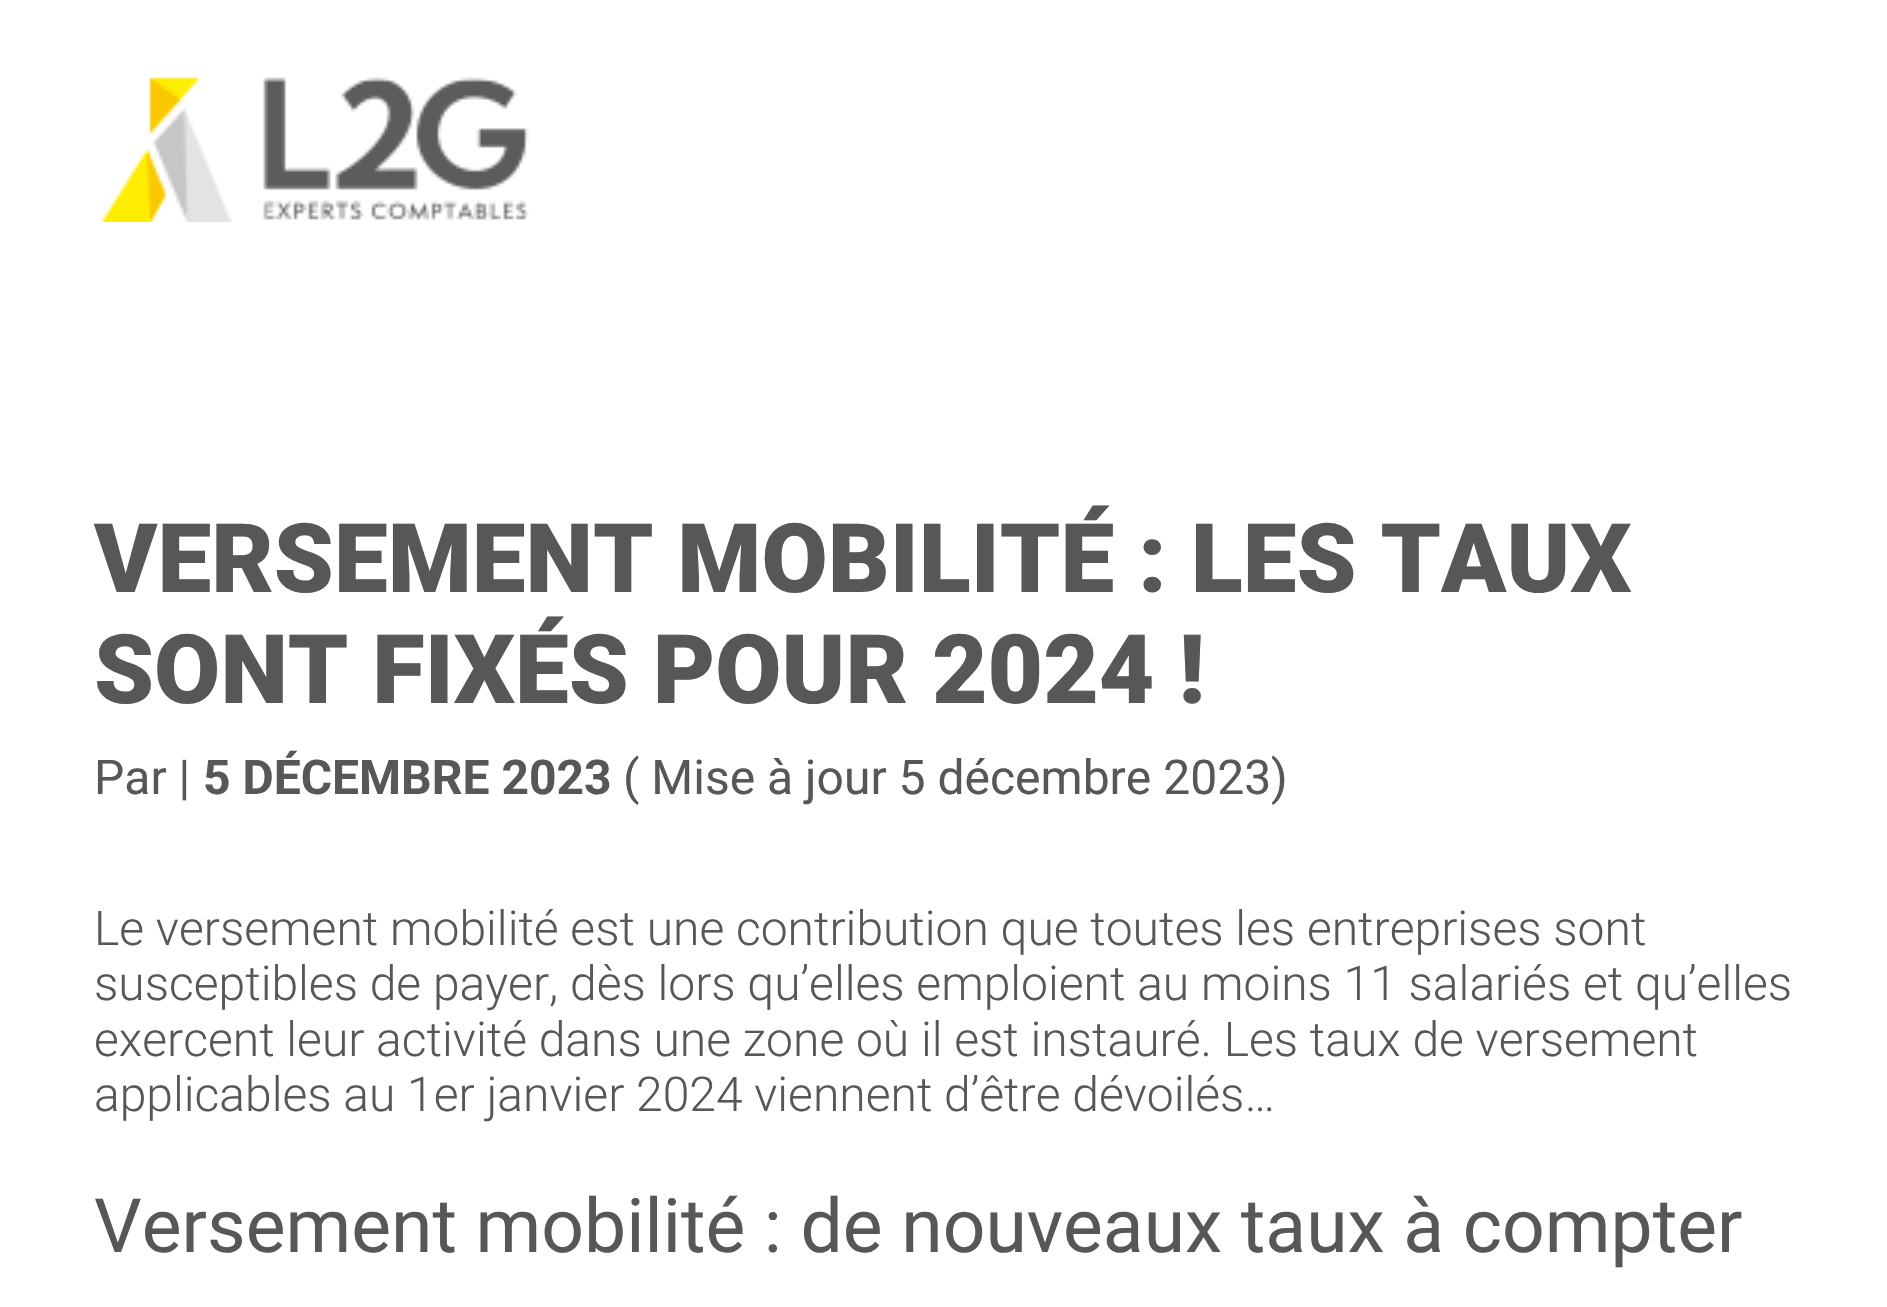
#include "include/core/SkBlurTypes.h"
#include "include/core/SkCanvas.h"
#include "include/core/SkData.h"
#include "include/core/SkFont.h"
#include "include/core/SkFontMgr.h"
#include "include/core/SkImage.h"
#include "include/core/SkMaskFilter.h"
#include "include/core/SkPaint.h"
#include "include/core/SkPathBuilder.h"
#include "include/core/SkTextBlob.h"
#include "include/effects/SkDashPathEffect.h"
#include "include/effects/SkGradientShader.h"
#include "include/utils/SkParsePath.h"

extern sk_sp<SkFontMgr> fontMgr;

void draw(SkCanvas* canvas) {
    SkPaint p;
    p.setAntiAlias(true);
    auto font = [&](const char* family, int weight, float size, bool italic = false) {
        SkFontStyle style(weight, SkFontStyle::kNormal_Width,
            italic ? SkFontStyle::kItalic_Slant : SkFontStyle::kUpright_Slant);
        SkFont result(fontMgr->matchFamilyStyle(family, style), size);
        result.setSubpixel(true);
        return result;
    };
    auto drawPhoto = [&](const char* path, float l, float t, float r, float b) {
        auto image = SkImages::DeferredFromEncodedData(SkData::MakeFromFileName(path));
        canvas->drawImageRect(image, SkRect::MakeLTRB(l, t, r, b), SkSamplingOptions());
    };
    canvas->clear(0xFFFFFFFF);
    drawPhoto("media/1.png", 101, 77, 529, 222);
    auto font1 = font("Roboto", 900, 96);
    p.setColor(0xFF575756);
    canvas->drawString("VERSEMENT MOBILITÉ : LES TAUX", 94, 592, font1, p);
    canvas->drawString("SONT FIXÉS POUR 2024 !", 94, 703, font1, p);
    auto font2 = font("Roboto", 400, 48);
    canvas->drawString("Par |", 94, 794, font2, p);
    auto font3 = font("Roboto", 700, 48);
    canvas->drawString("5 DÉCEMBRE 2023", 203, 794, font3, p);
    canvas->drawString("( Mise à jour 5 décembre 2023)", 623, 794, font2, p);
    auto font4 = font("Roboto", 300, 48);
    {
        const struct { const char* s; float x, y; } items[] = {
            {"Le versement mobilité est une contribution que toutes les entreprises sont", 94, 945},
            {"susceptibles de payer, dès lors qu’elles emploient au moins 11 salariés et qu’elles", 94, 1000},
            {"exercent leur activité dans une zone où il est instauré. Les taux de versement", 94, 1056},
            {"applicables au 1er janvier 2024 viennent d’être dévoilés…", 94, 1111},
        };
        for (auto [s, x, y] : items) {
            canvas->drawString(s, x, y, font4, p);
        }
    }
    auto font5 = font("Roboto", 400, 75);
    canvas->drawString("Versement mobilité : de nouveaux taux à compter", 94, 1252, font5, p);
}
